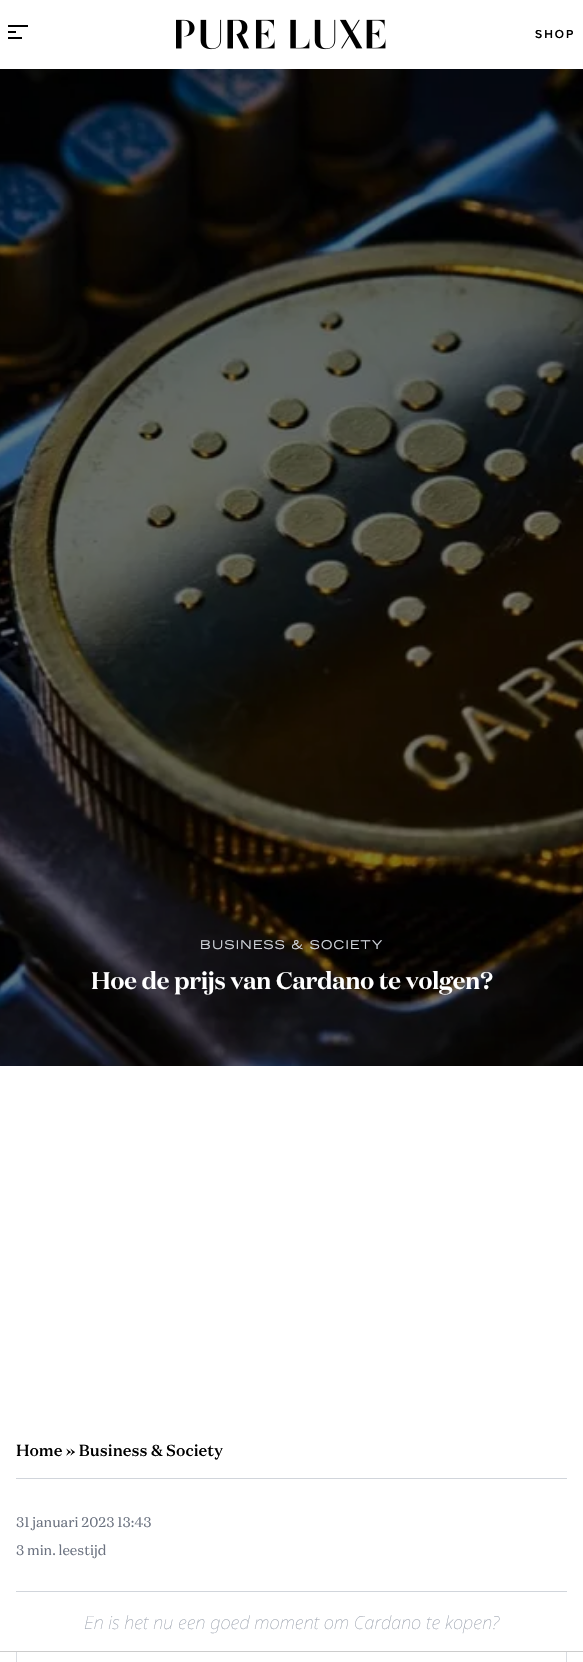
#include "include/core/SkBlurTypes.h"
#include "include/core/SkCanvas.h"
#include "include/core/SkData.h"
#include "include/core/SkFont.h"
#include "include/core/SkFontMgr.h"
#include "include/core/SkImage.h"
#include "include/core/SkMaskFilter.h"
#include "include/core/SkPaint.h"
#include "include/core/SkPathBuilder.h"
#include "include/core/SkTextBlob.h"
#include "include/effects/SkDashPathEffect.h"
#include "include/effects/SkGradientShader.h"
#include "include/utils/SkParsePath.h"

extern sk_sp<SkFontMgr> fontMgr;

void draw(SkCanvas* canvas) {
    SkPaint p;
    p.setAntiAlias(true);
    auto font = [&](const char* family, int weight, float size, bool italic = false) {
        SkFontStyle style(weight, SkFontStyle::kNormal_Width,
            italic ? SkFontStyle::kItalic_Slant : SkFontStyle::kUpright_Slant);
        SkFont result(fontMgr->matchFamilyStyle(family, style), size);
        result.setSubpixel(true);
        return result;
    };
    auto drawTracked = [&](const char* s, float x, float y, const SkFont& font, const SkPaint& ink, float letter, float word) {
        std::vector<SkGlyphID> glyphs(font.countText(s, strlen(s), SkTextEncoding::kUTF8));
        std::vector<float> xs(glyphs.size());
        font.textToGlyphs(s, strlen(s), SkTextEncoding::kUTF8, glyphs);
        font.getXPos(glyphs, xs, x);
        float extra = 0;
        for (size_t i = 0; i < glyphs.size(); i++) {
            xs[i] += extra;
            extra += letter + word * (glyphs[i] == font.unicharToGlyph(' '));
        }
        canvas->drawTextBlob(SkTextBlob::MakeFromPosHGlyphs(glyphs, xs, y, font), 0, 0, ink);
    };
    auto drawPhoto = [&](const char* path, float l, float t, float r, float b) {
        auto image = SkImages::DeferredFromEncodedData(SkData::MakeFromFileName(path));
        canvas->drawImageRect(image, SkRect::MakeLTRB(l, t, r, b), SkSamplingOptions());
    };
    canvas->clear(0xFFFFFFFF);
    {
        const struct { float l, t, r, b; SkColor color; } items[] = {
            {8, 25, 28, 27, 0xFF000000},
            {8, 31, 16, 33, 0xFF000000},
            {8, 37, 22, 39, 0xFF000000},
        };
        for (auto [l, t, r, b, color] : items) {
            p.setColor(color);
            canvas->drawRect(SkRect::MakeLTRB(l, t, r, b), p);
        }
    }
    drawPhoto("media/1.png", 176, 19, 386, 50);
    auto font1 = font("Proxima Nova", 600, 12);
    drawTracked("SHOP", 535, 38, font1, p, 2, 0);
    drawPhoto("media/2.png", 0, 69, 583, 1066);
    auto font2 = font("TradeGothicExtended", 400, 12);
    p.setColor(0xFFD1D5DB);
    drawTracked("BUSINESS & SOCIETY", 200, 949, font2, p, 1.25f, 0);
    auto font3 = font("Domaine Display", 600, 24);
    p.setColor(0xFFFFFFFF);
    canvas->drawString("Hoe de prijs van Cardano te volgen?", 91, 989, font3, p);
    auto font4 = font("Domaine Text", 500, 16);
    p.setColor(0xFF000000);
    canvas->drawString("Home » Business & Society", 16, 1456, font4, p);
    p.setColor(0xFFD1D5DB);
    canvas->drawRect(SkRect::MakeLTRB(16, 1478, 567, 1479), p);
    auto font5 = font("Domaine Text", 400, 14);
    p.setColor(0xFF6B7280);
    canvas->drawString("31 januari 2023 13:43", 16, 1527, font5, p);
    canvas->drawString("3 min. leestijd", 16, 1555, font5, p);
    p.setColor(0xFFD1D5DB);
    canvas->drawRect(SkRect::MakeLTRB(16, 1591, 567, 1592), p);
    auto font6 = font("Noto Sans", 100, 18, true);
    p.setColor(0xFF9CA3AF);
    canvas->drawString("En is het nu een goed moment om Cardano te kopen?", 84, 1629, font6, p);
    {
        const struct { float l, t, r, b; SkColor color; } items[] = {
            {566, 1652, 567, 1662, 0xFFDADDE2},
            {16, 1652, 17, 1662, 0xFFDADDE2},
            {0, 1651, 583, 1652, 0xFFCCCCCC},
        };
        for (auto [l, t, r, b, color] : items) {
            p.setColor(color);
            canvas->drawRect(SkRect::MakeLTRB(l, t, r, b), p);
        }
    }
}
